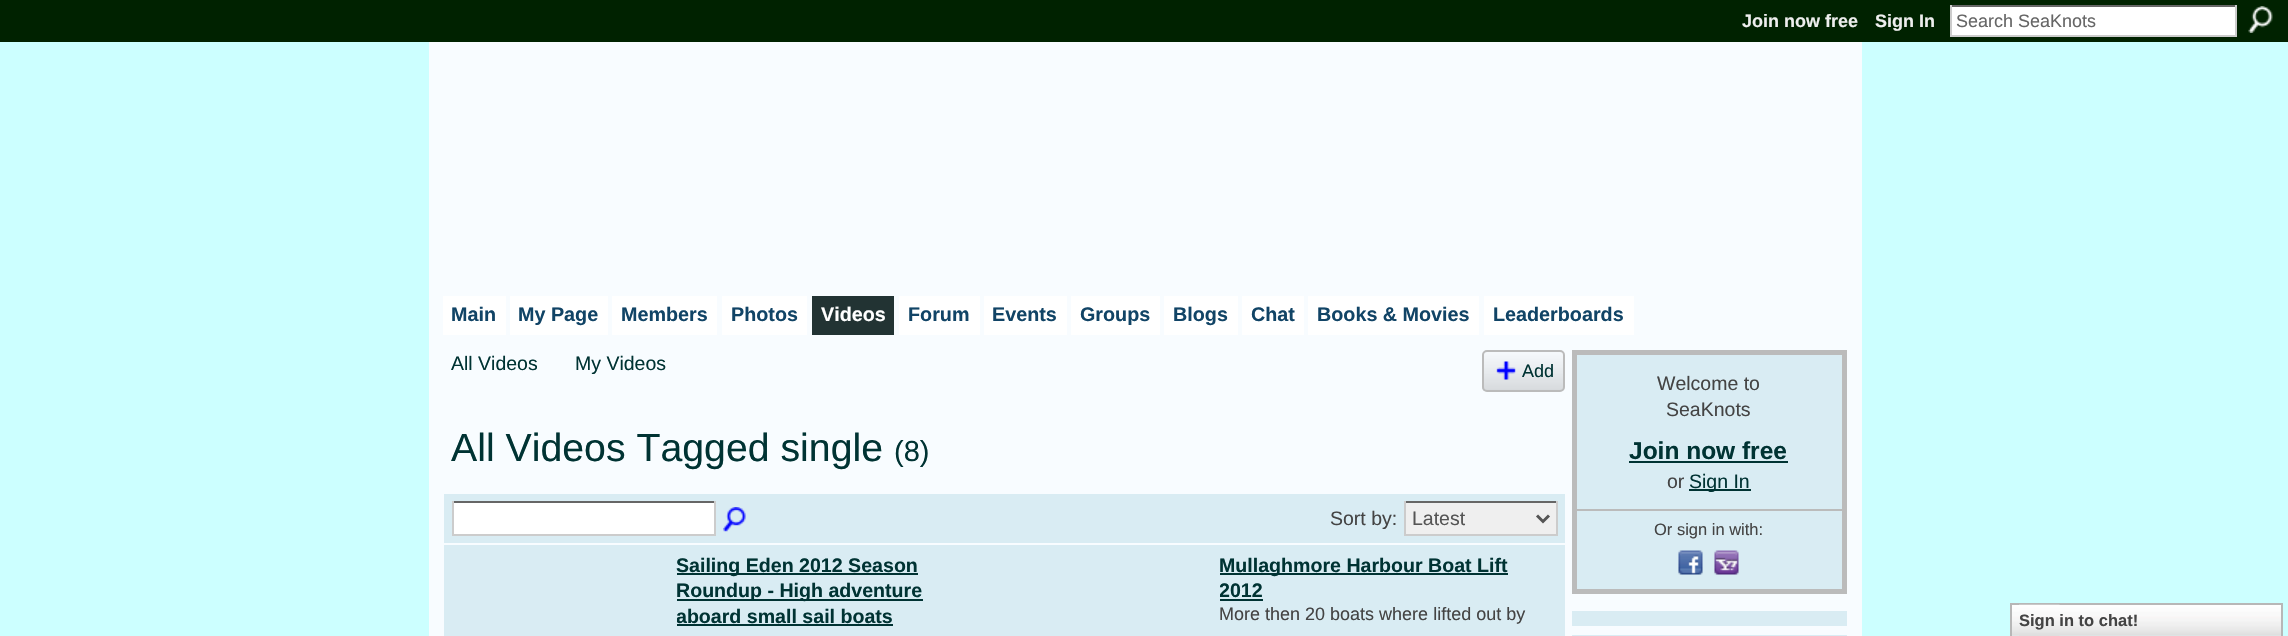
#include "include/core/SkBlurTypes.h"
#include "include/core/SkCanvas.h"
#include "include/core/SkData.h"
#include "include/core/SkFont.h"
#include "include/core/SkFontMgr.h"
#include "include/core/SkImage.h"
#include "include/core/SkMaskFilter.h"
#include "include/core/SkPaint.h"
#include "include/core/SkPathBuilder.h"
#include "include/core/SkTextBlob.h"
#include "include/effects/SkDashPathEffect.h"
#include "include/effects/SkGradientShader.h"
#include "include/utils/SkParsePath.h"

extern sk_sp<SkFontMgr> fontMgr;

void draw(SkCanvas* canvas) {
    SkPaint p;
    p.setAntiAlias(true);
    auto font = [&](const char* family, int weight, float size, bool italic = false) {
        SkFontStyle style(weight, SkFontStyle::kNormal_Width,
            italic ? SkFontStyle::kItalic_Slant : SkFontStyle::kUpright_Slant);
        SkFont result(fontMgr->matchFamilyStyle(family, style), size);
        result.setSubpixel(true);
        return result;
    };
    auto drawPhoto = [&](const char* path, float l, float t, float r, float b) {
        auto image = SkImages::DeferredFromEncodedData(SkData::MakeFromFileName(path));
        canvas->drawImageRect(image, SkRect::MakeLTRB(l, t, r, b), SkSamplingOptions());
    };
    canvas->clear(0xFFCCFFFF);
    p.setColor(0xFF002200);
    canvas->drawRect(SkRect::MakeLTRB(0, 0, 2288, 42), p);
    auto font1 = font("Liberation Sans", 700, 18);
    p.setColor(0xFFEEEEEE);
    canvas->drawString("Join now free", 1742, 27, font1, p);
    canvas->drawString("Sign In", 1875, 27, font1, p);
    {
        const struct { float l, t, r, b; SkColor color; } items[] = {
            {1952, 7, 2235, 35, 0xFFFFFFFF},
            {1950, 5, 2237, 7, 0xFF666666},
            {2235, 5, 2237, 36, 0xFFCCCCCC},
            {1950, 35, 2237, 37, 0xFFCCCCCC},
            {1950, 5, 1952, 36, 0xFFCCCCCC},
        };
        for (auto [l, t, r, b, color] : items) {
            p.setColor(color);
            canvas->drawRect(SkRect::MakeLTRB(l, t, r, b), p);
        }
    }
    auto font2 = font("Liberation Sans", 400, 18);
    p.setColor(0xFF666666);
    canvas->drawString("Search SeaKnots", 1956, 27, font2, p);
    drawPhoto("media/1.png", 2248, 6, 2273, 33);
    p.setColor(0xFFF8FCFF);
    canvas->drawRect(SkRect::MakeLTRB(429, 42, 1862, 636), p);
    p.setColor(0xFFFFFFFF);
    canvas->drawRect(SkRect::MakeLTRB(443, 296, 506, 335), p);
    auto font3 = font("Liberation Sans", 700, 19.75f);
    p.setColor(0xFF114466);
    canvas->drawString("Main", 451, 321, font3, p);
    p.setColor(0xFFFFFFFF);
    canvas->drawRect(SkRect::MakeLTRB(510, 296, 608, 335), p);
    p.setColor(0xFF114466);
    canvas->drawString("My Page", 518, 321, font3, p);
    p.setColor(0xFFFFFFFF);
    canvas->drawRect(SkRect::MakeLTRB(612, 296, 717, 335), p);
    p.setColor(0xFF114466);
    canvas->drawString("Members", 621, 321, font3, p);
    p.setColor(0xFFFFFFFF);
    canvas->drawRect(SkRect::MakeLTRB(722, 296, 807, 335), p);
    p.setColor(0xFF114466);
    canvas->drawString("Photos", 731, 321, font3, p);
    p.setColor(0xFF223333);
    canvas->drawRect(SkRect::MakeLTRB(812, 296, 894, 335), p);
    p.setColor(0xFFFFFFFF);
    canvas->drawString("Videos", 821, 321, font3, p);
    canvas->drawRect(SkRect::MakeLTRB(899, 296, 980, 335), p);
    p.setColor(0xFF114466);
    canvas->drawString("Forum", 908, 321, font3, p);
    p.setColor(0xFFFFFFFF);
    canvas->drawRect(SkRect::MakeLTRB(984, 296, 1067, 335), p);
    p.setColor(0xFF114466);
    canvas->drawString("Events", 992, 321, font3, p);
    p.setColor(0xFFFFFFFF);
    canvas->drawRect(SkRect::MakeLTRB(1071, 296, 1160, 335), p);
    p.setColor(0xFF114466);
    canvas->drawString("Groups", 1080, 321, font3, p);
    p.setColor(0xFFFFFFFF);
    canvas->drawRect(SkRect::MakeLTRB(1164, 296, 1238, 335), p);
    p.setColor(0xFF114466);
    canvas->drawString("Blogs", 1173, 321, font3, p);
    p.setColor(0xFFFFFFFF);
    canvas->drawRect(SkRect::MakeLTRB(1242, 296, 1304, 335), p);
    p.setColor(0xFF114466);
    canvas->drawString("Chat", 1251, 321, font3, p);
    p.setColor(0xFFFFFFFF);
    canvas->drawRect(SkRect::MakeLTRB(1308, 296, 1479, 335), p);
    p.setColor(0xFF114466);
    canvas->drawString("Books & Movies", 1317, 321, font3, p);
    p.setColor(0xFFFFFFFF);
    canvas->drawRect(SkRect::MakeLTRB(1484, 296, 1634, 335), p);
    p.setColor(0xFF114466);
    canvas->drawString("Leaderboards", 1493, 321, font3, p);
    auto font4 = font("Liberation Sans", 400, 19.5f);
    p.setColor(0xFF003333);
    canvas->drawString("All Videos", 451, 370, font4, p);
    canvas->drawString("My Videos", 575, 370, font4, p);
    drawPhoto("media/2.png", 1482, 352, 1565, 392);
    p.setStyle(SkPaint::kStroke_Style);
    p.setStrokeWidth(2);
    p.setColor(0xFFBBBBBB);
    canvas->drawRoundRect(SkRect::MakeLTRB(1483, 351, 1564, 391), 4, 4, p);
    drawPhoto("media/3.png", 1496, 361, 1516, 380);
    p.setStyle(SkPaint::kFill_Style);
    p.setColor(0xFF003333);
    canvas->drawString("Add", 1522, 377, font2, p);
    auto font5 = font("Liberation Sans", 400, 39.25f);
    canvas->drawString("All Videos Tagged single", 451, 461, font5, p);
    auto font6 = font("Liberation Sans", 400, 29);
    canvas->drawString("(8)", 894, 461, font6, p);
    {
        const struct { float l, t, r, b; SkColor color; } items[] = {
            {444, 494, 1565, 543, 0xFFD9ECF3},
            {454, 503, 714, 534, 0xFFFFFFFF},
            {452, 501, 716, 503, 0xFF666666},
            {714, 501, 716, 536, 0xFFCCCCCC},
            {452, 534, 716, 536, 0xFFCCCCCC},
            {452, 501, 454, 536, 0xFFCCCCCC},
        };
        for (auto [l, t, r, b, color] : items) {
            p.setColor(color);
            canvas->drawRect(SkRect::MakeLTRB(l, t, r, b), p);
        }
    }
    drawPhoto("media/4.png", 723, 507, 746, 532);
    p.setColor(0xFF444444);
    canvas->drawString("Sort by:", 1330, 525, font4, p);
    {
        const struct { float l, t, r, b; SkColor color; } items[] = {
            {1406, 503, 1556, 534, 0xFFEFEFEF},
            {1404, 501, 1557, 503, 0xFF666666},
            {1556, 501, 1558, 536, 0xFFCCCCCC},
            {1404, 534, 1557, 536, 0xFFCCCCCC},
            {1404, 501, 1406, 536, 0xFFCCCCCC},
        };
        for (auto [l, t, r, b, color] : items) {
            p.setColor(color);
            canvas->drawRect(SkRect::MakeLTRB(l, t, r, b), p);
        }
    }
    p.setStyle(SkPaint::kStroke_Style);
    p.setStrokeWidth(3);
    p.setColor(0xFF555555);
    canvas->drawPath(SkPathBuilder().moveTo(1537, 515.5f).lineTo(1543, 521.5f).lineTo(1549, 515.5f).detach(), p);
    p.setStyle(SkPaint::kFill_Style);
    canvas->drawString("Latest", 1412, 525, font4, p);
    p.setColor(0xFFD9ECF3);
    canvas->drawRect(SkRect::MakeLTRB(444, 545, 1565, 636), p);
    p.setColor(0xFF003333);
    canvas->drawRect(SkRect::MakeLTRB(677, 573, 918, 575), p);
    auto font7 = font("Liberation Sans", 700, 19.6f);
    canvas->drawString("Sailing Eden 2012 Season", 676, 572, font7, p);
    canvas->drawRect(SkRect::MakeLTRB(677, 599, 923, 601), p);
    canvas->drawString("Roundup - High adventure", 676, 597, font7, p);
    canvas->save();
    canvas->clipRect(SkRect::MakeLTRB(677, 552, 989, 629));
    canvas->drawString("aboard small sail boats", 676, 623, font7, p);
    canvas->restore();
    canvas->drawRect(SkRect::MakeLTRB(677, 624, 893, 626), p);
    canvas->drawRect(SkRect::MakeLTRB(1220, 573, 1508, 575), p);
    canvas->drawString("Mullaghmore Harbour Boat Lift", 1219, 572, font7, p);
    canvas->save();
    canvas->clipRect(SkRect::MakeLTRB(1220, 552, 1532, 603));
    canvas->drawString("2012", 1219, 597, font7, p);
    canvas->restore();
    canvas->drawRect(SkRect::MakeLTRB(1220, 599, 1263, 601), p);
    p.setColor(0xFF444444);
    canvas->drawString("More then 20 boats where lifted out by", 1219, 620, font2, p);
    p.setColor(0xFFD9ECF3);
    canvas->drawRect(SkRect::MakeLTRB(1574.5f, 352.5f, 1844.5f, 591.5f), p);
    p.setStyle(SkPaint::kStroke_Style);
    p.setStrokeWidth(5);
    p.setColor(0xFFBBBBBB);
    canvas->drawRect(SkRect::MakeLTRB(1574.5f, 352.5f, 1844.5f, 591.5f), p);
    p.setStyle(SkPaint::kFill_Style);
    p.setColor(0xFF444444);
    canvas->drawString("Welcome to", 1657, 390, font4, p);
    canvas->drawString("SeaKnots", 1666, 416, font4, p);
    auto font8 = font("Liberation Sans", 700, 24.5f);
    p.setColor(0xFF003333);
    canvas->drawString("Join now free", 1629, 459, font8, p);
    canvas->drawRect(SkRect::MakeLTRB(1629, 461, 1788, 463), p);
    p.setColor(0xFF444444);
    canvas->drawString("or", 1667, 488, font4, p);
    p.setColor(0xFF003333);
    canvas->drawRect(SkRect::MakeLTRB(1689, 489, 1751, 491), p);
    canvas->drawString("Sign In", 1689, 488, font4, p);
    p.setColor(0xFFBBBBBB);
    canvas->drawRect(SkRect::MakeLTRB(1577, 509, 1842, 511), p);
    auto font9 = font("Liberation Sans", 400, 16.5f);
    p.setColor(0xFF444444);
    canvas->drawString("Or sign in with:", 1654, 535, font9, p);
    drawPhoto("media/5.png", 1678, 550, 1703, 575);
    drawPhoto("media/6.png", 1714, 550, 1739, 575);
    p.setColor(0xFFD9ECF3);
    canvas->drawRect(SkRect::MakeLTRB(1572, 611, 1847, 626), p);
    canvas->drawRect(SkRect::MakeLTRB(1572, 635, 1847, 636), p);
    drawPhoto("media/7.png", 2012, 605, 2281, 636);
    p.setStyle(SkPaint::kStroke_Style);
    p.setStrokeWidth(2);
    p.setColor(0xFFB7B7B7);
    canvas->drawRect(SkRect::MakeLTRB(2011, 604, 2282, 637), p);
    drawPhoto("media/8.png", 2019, 604, 2060, 636);
    auto font10 = font("Liberation Sans", 700, 16.5f);
    p.setStyle(SkPaint::kFill_Style);
    p.setColor(0xFF444444);
    canvas->drawString("Sign in to chat!", 2019, 626, font10, p);
}
